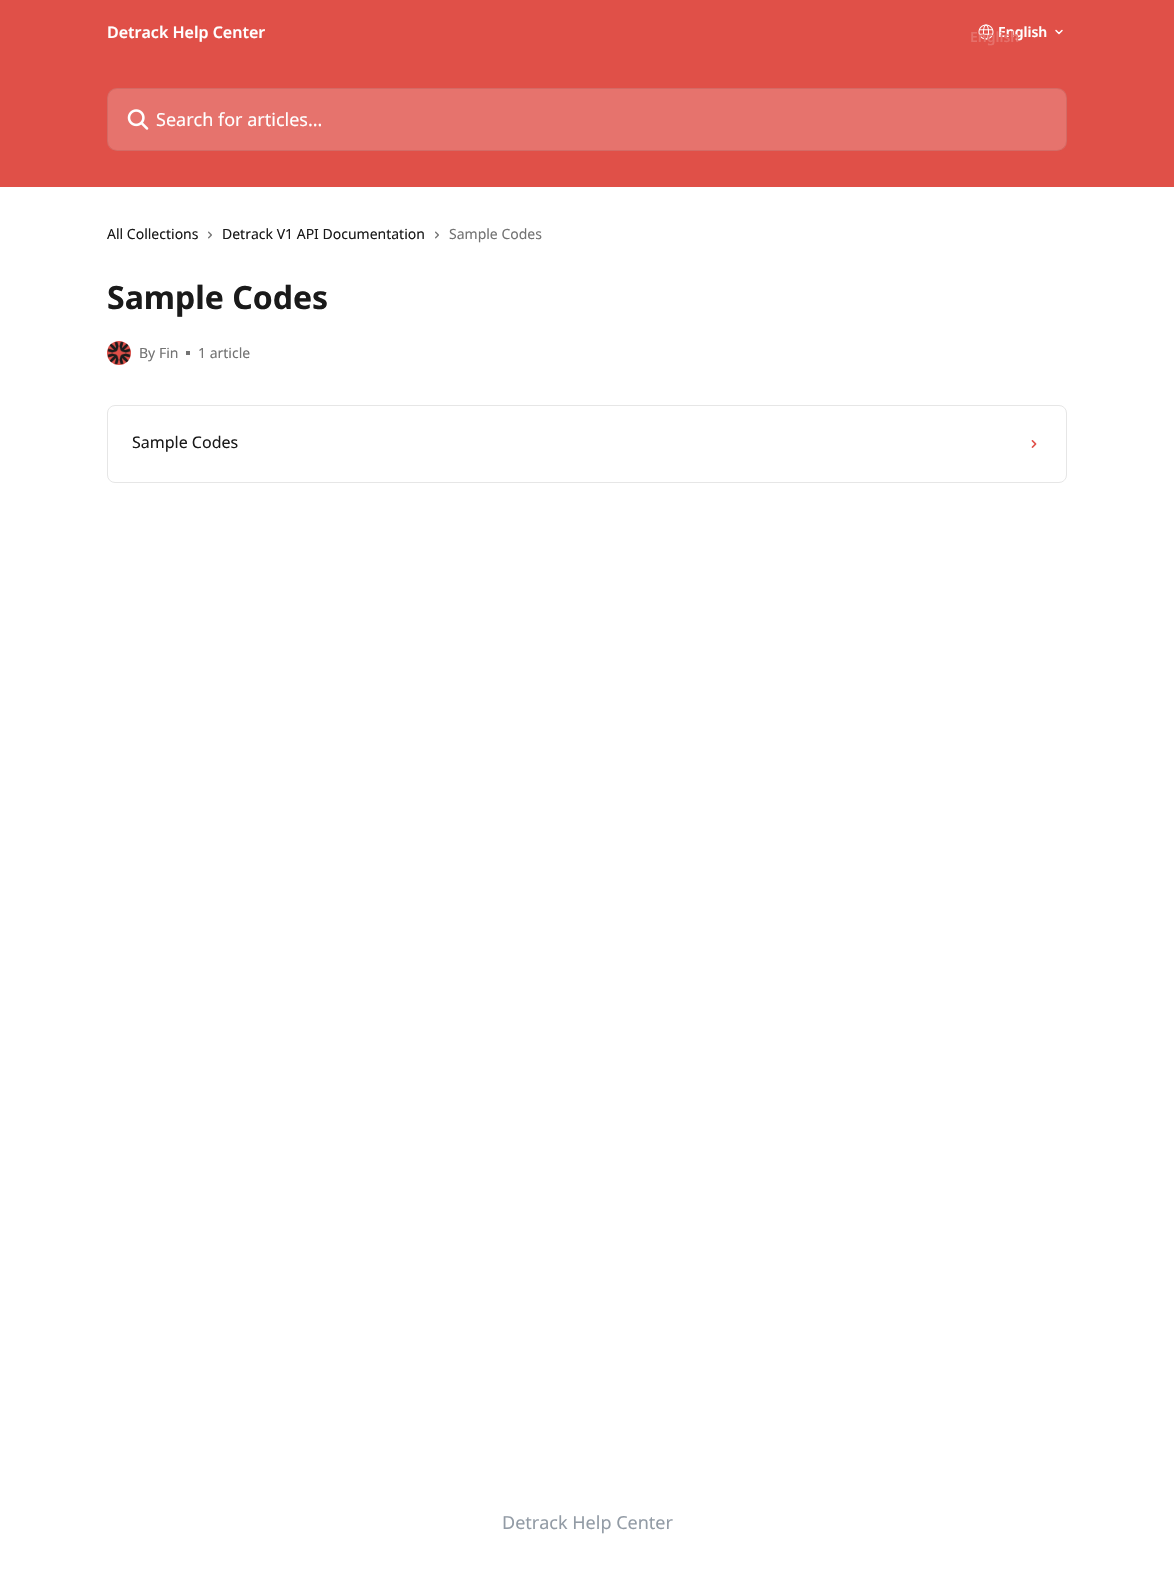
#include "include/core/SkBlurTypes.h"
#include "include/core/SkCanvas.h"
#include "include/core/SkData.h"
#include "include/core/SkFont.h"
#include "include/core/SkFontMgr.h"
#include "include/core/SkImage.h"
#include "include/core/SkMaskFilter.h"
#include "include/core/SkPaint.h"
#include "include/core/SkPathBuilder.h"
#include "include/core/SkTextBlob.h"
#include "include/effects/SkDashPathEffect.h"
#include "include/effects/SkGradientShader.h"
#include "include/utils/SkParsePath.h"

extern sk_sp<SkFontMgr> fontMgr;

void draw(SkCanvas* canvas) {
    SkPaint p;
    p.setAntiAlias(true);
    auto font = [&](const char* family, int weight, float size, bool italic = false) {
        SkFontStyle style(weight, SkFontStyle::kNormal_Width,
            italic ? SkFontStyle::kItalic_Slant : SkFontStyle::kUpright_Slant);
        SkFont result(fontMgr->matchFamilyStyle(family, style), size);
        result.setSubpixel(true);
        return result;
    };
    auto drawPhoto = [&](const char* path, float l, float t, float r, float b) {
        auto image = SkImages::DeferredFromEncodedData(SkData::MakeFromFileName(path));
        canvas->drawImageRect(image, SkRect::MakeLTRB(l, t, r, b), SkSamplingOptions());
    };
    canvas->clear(0xFFFFFFFF);
    p.setColor(0xFFE05048);
    canvas->drawRect(SkRect::MakeLTRB(0, 0, 1174, 187), p);
    auto font1 = font("Noto Sans", 600, 16);
    p.setColor(0xFFFFFFFF);
    canvas->drawString("Detrack Help Center", 107, 38, font1, p);
    drawPhoto("media/1.png", 978, 24, 994, 40);
    auto font2 = font("Noto Sans", 600, 14);
    canvas->drawString("English", 998, 37, font2, p);
    p.setColor(0xFFE6706A);
    canvas->drawString("English", 970, 42, font2, p);
    p.setStyle(SkPaint::kStroke_Style);
    p.setStrokeWidth(1.5f);
    p.setStrokeCap(SkPaint::kRound_Cap);
    p.setStrokeJoin(SkPaint::kRound_Join);
    p.setColor(0xFFFFFFFF);
    canvas->drawPath(SkPathBuilder().moveTo(1056, 30.5f).lineTo(1059, 33.5f).lineTo(1062, 30.5f).detach(), p);
    p.setStyle(SkPaint::kFill_Style);
    p.setColor(0x33FFFFFF);
    canvas->drawRoundRect(SkRect::MakeLTRB(107, 88, 1067, 151), 10, 10, p);
    p.setStyle(SkPaint::kStroke_Style);
    p.setStrokeWidth(1);
    p.setStrokeCap(SkPaint::kButt_Cap);
    p.setStrokeJoin(SkPaint::kMiter_Join);
    p.setColor(0x14000000);
    canvas->drawRoundRect(SkRect::MakeLTRB(107.5f, 88.5f, 1066.5f, 150.5f), 9.5f, 9.5f, p);
    drawPhoto("media/2.png", 127, 109, 149, 130);
    auto font3 = font("Noto Sans", 400, 18);
    p.setStyle(SkPaint::kFill_Style);
    p.setColor(0xFFFFFFFF);
    canvas->drawString("Search for articles...", 156, 126, font3, p);
    auto font4 = font("Noto Sans", 400, 14);
    p.setColor(0xFF1A1A1A);
    canvas->drawString("All Collections", 107, 239, font4, p);
    drawPhoto("media/3.png", 208, 231, 212, 239);
    canvas->drawString("Detrack V1 API Documentation", 222, 239, font4, p);
    drawPhoto("media/3.png", 435, 231, 439, 239);
    p.setColor(0xFF737373);
    canvas->drawString("Sample Codes", 449, 239, font4, p);
    auto font5 = font("Noto Sans", 700, 32);
    p.setColor(0xFF1A1A1A);
    canvas->drawString("Sample Codes", 107, 309, font5, p);
    p.setColor(0xFFE04F48);
    canvas->drawCircle(119, 353, 12, p);
    drawPhoto("media/4.png", 107, 341, 131, 365);
    p.setColor(0xFF737373);
    canvas->drawString("By Fin", 139, 358, font4, p);
    canvas->drawRect(SkRect::MakeLTRB(186, 351, 190, 355), p);
    canvas->drawString("1 article", 198, 358, font4, p);
    p.setStyle(SkPaint::kStroke_Style);
    p.setColor(0xFFE6E6E6);
    canvas->drawRoundRect(SkRect::MakeLTRB(107.5f, 405.5f, 1066.5f, 482.5f), 7.5f, 7.5f, p);
    auto font6 = font("Noto Sans", 400, 16);
    p.setStyle(SkPaint::kFill_Style);
    p.setColor(0xFF1A1A1A);
    canvas->drawString("Sample Codes", 132, 448, font6, p);
    drawPhoto("media/5.png", 1031, 440, 1037, 448);
    p.setColor(0xFF929BA5);
    canvas->drawString("Detrack Help Center", 502, 1529, font3, p);
}
